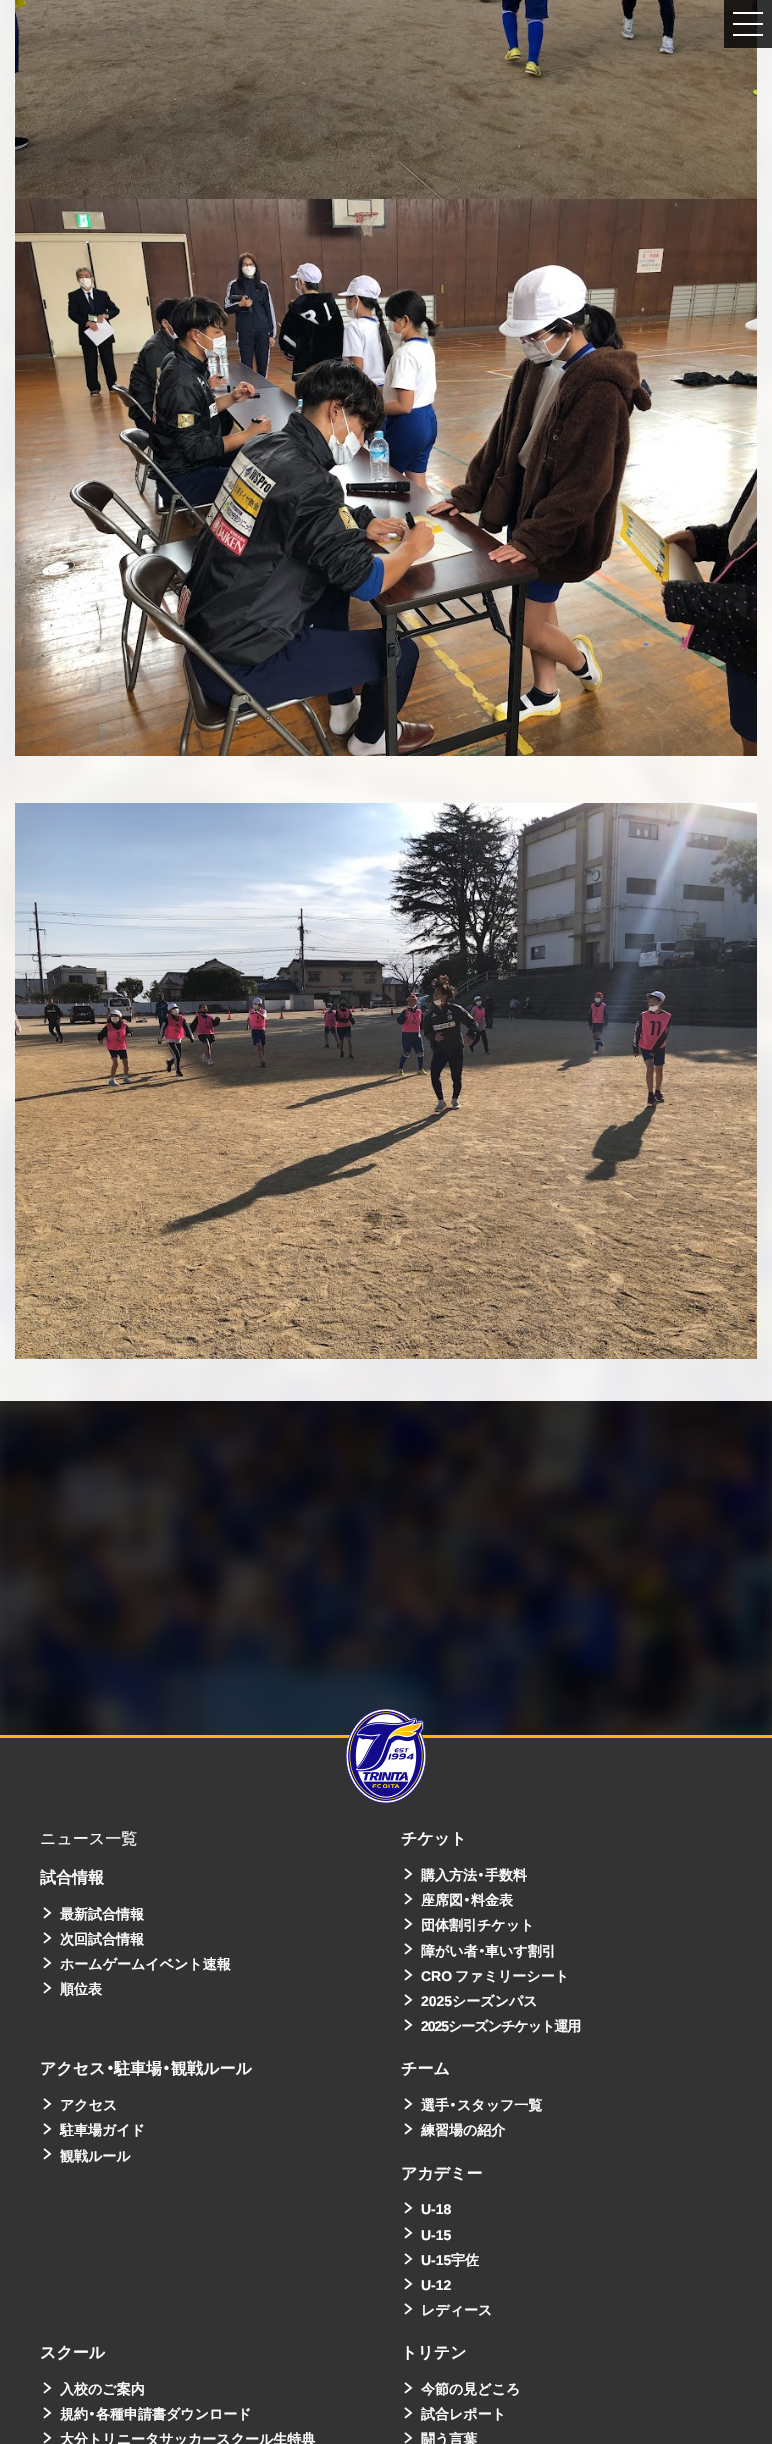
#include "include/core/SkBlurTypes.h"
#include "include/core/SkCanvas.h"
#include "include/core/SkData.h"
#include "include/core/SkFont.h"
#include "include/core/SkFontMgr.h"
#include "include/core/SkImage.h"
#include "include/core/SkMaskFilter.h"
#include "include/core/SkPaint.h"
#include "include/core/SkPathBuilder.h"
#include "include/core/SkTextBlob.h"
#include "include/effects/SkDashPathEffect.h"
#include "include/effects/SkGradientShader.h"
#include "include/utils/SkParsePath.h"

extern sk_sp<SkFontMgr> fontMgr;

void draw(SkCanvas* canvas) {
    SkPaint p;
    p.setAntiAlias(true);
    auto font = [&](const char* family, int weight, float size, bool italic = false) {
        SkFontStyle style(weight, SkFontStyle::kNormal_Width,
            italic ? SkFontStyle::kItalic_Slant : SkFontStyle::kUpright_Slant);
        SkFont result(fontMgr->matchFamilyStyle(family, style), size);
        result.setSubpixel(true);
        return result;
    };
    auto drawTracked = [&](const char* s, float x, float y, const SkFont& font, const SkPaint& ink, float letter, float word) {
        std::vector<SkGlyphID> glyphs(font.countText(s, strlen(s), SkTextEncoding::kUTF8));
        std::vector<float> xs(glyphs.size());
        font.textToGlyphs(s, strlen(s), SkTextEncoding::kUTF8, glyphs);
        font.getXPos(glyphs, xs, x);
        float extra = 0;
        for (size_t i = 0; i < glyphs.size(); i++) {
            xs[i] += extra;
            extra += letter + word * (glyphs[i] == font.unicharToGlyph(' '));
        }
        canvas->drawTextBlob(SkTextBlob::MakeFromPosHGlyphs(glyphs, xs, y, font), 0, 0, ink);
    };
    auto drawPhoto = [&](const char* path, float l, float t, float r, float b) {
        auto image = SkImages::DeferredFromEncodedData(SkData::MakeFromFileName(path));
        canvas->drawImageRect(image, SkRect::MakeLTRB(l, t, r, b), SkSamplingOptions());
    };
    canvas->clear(0xFFFFFFFF);
    drawPhoto("media/1.png", 0, 0, 772, 1735);
    p.setColor(0xE6FFFFFF);
    canvas->drawRect(SkRect::MakeLTRB(0, 0, 772, 1401), p);
    drawPhoto("media/2.png", 15, 0, 757, 199);
    {
        const struct { float l, t, r, b; SkColor color; } items[] = {
            {724, 0, 772, 48, 0xCC000000},
            {733, 23, 763, 25, 0xFFFFFFFF},
            {733, 12, 763, 14, 0xFFFFFFFF},
            {733, 34, 763, 36, 0xFFFFFFFF},
        };
        for (auto [l, t, r, b, color] : items) {
            p.setColor(color);
            canvas->drawRect(SkRect::MakeLTRB(l, t, r, b), p);
        }
    }
    drawPhoto("media/3.png", 15, 199, 757, 756);
    drawPhoto("media/4.png", 15, 803, 757, 1359);
    {
        const struct { float l, t, r, b; SkColor color; } items[] = {
            {0, 1401, 772, 1735, 0xB3000000},
            {0, 1738, 772, 2444, 0xFF333333},
            {0, 1735, 772, 1738, 0xFFFFB606},
        };
        for (auto [l, t, r, b, color] : items) {
            p.setColor(color);
            canvas->drawRect(SkRect::MakeLTRB(l, t, r, b), p);
        }
    }
    drawPhoto("media/5.png", 345, 1708, 427, 1804);
    auto font1 = font("WenQuanYi Zen Hei", 500, 16);
    p.setColor(0xFFFFFFFF);
    canvas->drawString("ニュース一覧", 40, 1844, font1, p);
    auto font2 = font("WenQuanYi Zen Hei", 700, 16);
    canvas->drawString("試合情報", 40, 1883, font2, p);
    drawPhoto("media/6.png", 43, 1907, 52, 1919);
    auto font3 = font("WenQuanYi Zen Hei", 700, 14);
    canvas->drawString("最新試合情報", 60, 1919, font3, p);
    drawPhoto("media/6.png", 43, 1932, 52, 1944);
    canvas->drawString("次回試合情報", 60, 1944, font3, p);
    drawPhoto("media/6.png", 43, 1957, 52, 1969);
    canvas->drawString("ホームゲームイベント速報", 60, 1969, font3, p);
    drawPhoto("media/6.png", 43, 1982, 52, 1994);
    canvas->drawString("順位表", 60, 1994, font3, p);
    canvas->drawString("チケット", 401, 1844, font2, p);
    drawPhoto("media/6.png", 404, 1868, 413, 1880);
    canvas->drawString("購入方法", 421, 1880, font3, p);
    auto font4 = font("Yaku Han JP", 700, 14);
    canvas->drawString("・", 477, 1880, font4, p);
    canvas->drawString("手数料", 485, 1880, font3, p);
    drawPhoto("media/6.png", 404, 1893, 413, 1905);
    canvas->drawString("座席図", 421, 1905, font3, p);
    canvas->drawString("・", 463, 1905, font4, p);
    canvas->drawString("料金表", 471, 1905, font3, p);
    drawPhoto("media/6.png", 404, 1918, 413, 1930);
    canvas->drawString("団体割引チケット", 421, 1930, font3, p);
    drawPhoto("media/6.png", 404, 1943, 413, 1955);
    canvas->drawString("障がい者", 421, 1956, font3, p);
    canvas->drawString("・", 478, 1956, font4, p);
    canvas->drawString("車いす割引", 485, 1956, font3, p);
    drawPhoto("media/6.png", 404, 1969, 413, 1981);
    auto font5 = font("Liberation Sans", 700, 14);
    canvas->drawString("CRO", 421, 1981, font5, p);
    canvas->drawString("ファミリーシート", 455, 1981, font3, p);
    drawPhoto("media/6.png", 404, 1994, 413, 2006);
    canvas->drawString("2025", 421, 2006, font5, p);
    canvas->drawString("シーズンパス", 452, 2006, font3, p);
    drawPhoto("media/6.png", 404, 2019, 413, 2031);
    drawTracked("2025", 421, 2031, font5, p, -1, 0);
    drawTracked("シーズンチケット運用", 448, 2031, font3, p, -1, 0);
    canvas->drawString("アクセス", 40, 2074, font2, p);
    auto font6 = font("Yaku Han JP", 700, 16);
    canvas->drawString("・", 106, 2074, font6, p);
    canvas->drawString("駐車場", 114, 2074, font2, p);
    canvas->drawString("・", 162, 2074, font6, p);
    canvas->drawString("観戦ルール", 171, 2074, font2, p);
    drawPhoto("media/6.png", 43, 2098, 52, 2110);
    canvas->drawString("アクセス", 60, 2110, font3, p);
    drawPhoto("media/6.png", 43, 2123, 52, 2135);
    canvas->drawString("駐車場ガイド", 60, 2135, font3, p);
    drawPhoto("media/6.png", 43, 2148, 52, 2160);
    canvas->drawString("観戦ルール", 60, 2161, font3, p);
    canvas->drawString("チーム", 401, 2074, font2, p);
    drawPhoto("media/6.png", 404, 2098, 413, 2110);
    canvas->drawString("選手", 421, 2110, font3, p);
    canvas->drawString("・", 449, 2110, font4, p);
    canvas->drawString("スタッフ一覧", 457, 2110, font3, p);
    drawPhoto("media/6.png", 404, 2123, 413, 2135);
    canvas->drawString("練習場の紹介", 421, 2135, font3, p);
    canvas->drawString("アカデミー", 401, 2179, font2, p);
    drawPhoto("media/6.png", 404, 2202, 413, 2214);
    canvas->drawString("U-18", 421, 2214, font5, p);
    drawPhoto("media/6.png", 404, 2227, 413, 2239);
    canvas->drawString("U-15", 421, 2240, font5, p);
    drawPhoto("media/6.png", 404, 2253, 413, 2265);
    canvas->drawString("U-15", 421, 2265, font5, p);
    canvas->drawString("宇佐", 451, 2265, font3, p);
    drawPhoto("media/6.png", 404, 2278, 413, 2290);
    canvas->drawString("U-12", 421, 2290, font5, p);
    drawPhoto("media/6.png", 404, 2303, 413, 2315);
    canvas->drawString("レディース", 421, 2315, font3, p);
    canvas->drawString("スクール", 40, 2358, font2, p);
    drawPhoto("media/6.png", 43, 2382, 52, 2394);
    canvas->drawString("入校のご案内", 60, 2394, font3, p);
    drawPhoto("media/6.png", 43, 2407, 52, 2419);
    canvas->drawString("規約", 60, 2419, font3, p);
    canvas->drawString("・", 88, 2419, font4, p);
    canvas->drawString("各種申請書ダウンロード", 96, 2419, font3, p);
    drawPhoto("media/6.png", 43, 2432, 52, 2444);
    canvas->drawString("大分トリニータサッカースクール生特典", 60, 2444, font3, p);
    canvas->drawString("トリテン", 401, 2358, font2, p);
    drawPhoto("media/6.png", 404, 2382, 413, 2394);
    canvas->drawString("今節の見どころ", 421, 2394, font3, p);
    drawPhoto("media/6.png", 404, 2407, 413, 2419);
    canvas->drawString("試合レポート", 421, 2419, font3, p);
    drawPhoto("media/6.png", 404, 2432, 413, 2444);
    canvas->drawString("闘う言葉", 421, 2444, font3, p);
}
